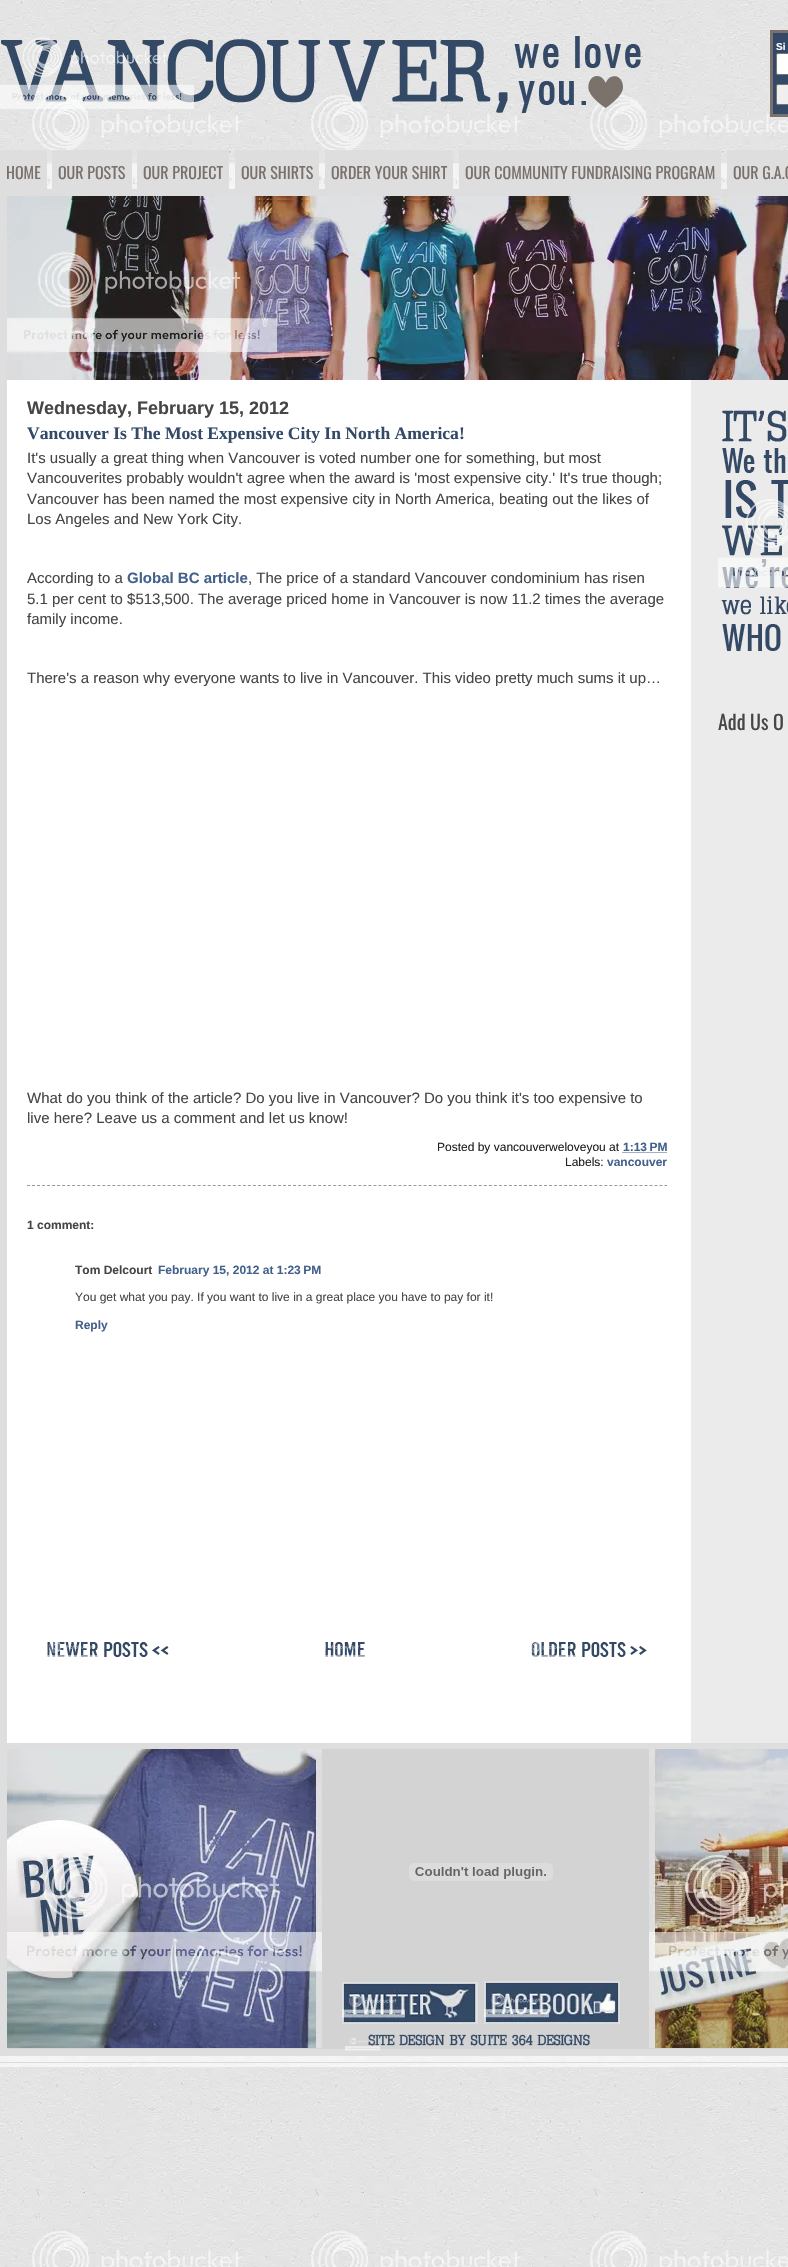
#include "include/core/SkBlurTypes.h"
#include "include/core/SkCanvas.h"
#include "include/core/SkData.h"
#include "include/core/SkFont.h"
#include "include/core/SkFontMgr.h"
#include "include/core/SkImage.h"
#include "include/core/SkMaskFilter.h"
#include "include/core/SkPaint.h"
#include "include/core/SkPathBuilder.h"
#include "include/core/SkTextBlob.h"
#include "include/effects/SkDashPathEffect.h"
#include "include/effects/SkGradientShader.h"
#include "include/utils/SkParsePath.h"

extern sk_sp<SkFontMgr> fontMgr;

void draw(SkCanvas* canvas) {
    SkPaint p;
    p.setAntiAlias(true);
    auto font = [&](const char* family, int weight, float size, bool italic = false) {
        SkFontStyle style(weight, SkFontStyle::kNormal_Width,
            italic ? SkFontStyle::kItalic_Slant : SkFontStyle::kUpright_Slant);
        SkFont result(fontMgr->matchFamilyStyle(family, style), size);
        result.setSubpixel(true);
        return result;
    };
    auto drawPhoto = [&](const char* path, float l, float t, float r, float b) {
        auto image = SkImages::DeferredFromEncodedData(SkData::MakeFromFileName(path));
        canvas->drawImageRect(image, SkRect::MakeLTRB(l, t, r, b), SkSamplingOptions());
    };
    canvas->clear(0xFFFFFFFF);
    drawPhoto("media/1.png", 0, 0, 788, 2267);
    drawPhoto("media/2.png", 0, 36, 641, 113);
    p.setColor(0xFF334967);
    canvas->drawRect(SkRect::MakeLTRB(773, 33, 788, 114), p);
    p.setStyle(SkPaint::kStroke_Style);
    p.setStrokeWidth(3);
    p.setColor(0xFF7A716C);
    canvas->drawPath(SkPathBuilder().moveTo(771.5f, 31.5f).lineTo(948.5f, 31.5f).lineTo(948.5f, 115.5f).lineTo(771.5f, 115.5f).close().detach(), p);
    auto font1 = font("Liberation Sans", 700, 10);
    p.setStyle(SkPaint::kFill_Style);
    p.setColor(0xFFFFFFFF);
    canvas->drawString("Si", 776, 50, font1, p);
    canvas->drawRoundRect(SkRect::MakeLTRB(776.5f, 53.5f, 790.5f, 74.5f), 1.5f, 1.5f, p);
    p.setStyle(SkPaint::kStroke_Style);
    p.setStrokeWidth(1);
    p.setColor(0xFF767676);
    canvas->drawRoundRect(SkRect::MakeLTRB(776.5f, 53.5f, 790.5f, 74.5f), 1.5f, 1.5f, p);
    p.setStyle(SkPaint::kFill_Style);
    p.setColor(0xFFEFEFEF);
    canvas->drawRoundRect(SkRect::MakeLTRB(776.5f, 84.5f, 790.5f, 104.5f), 1.5f, 1.5f, p);
    p.setStyle(SkPaint::kStroke_Style);
    p.setColor(0xFF767676);
    canvas->drawRoundRect(SkRect::MakeLTRB(776.5f, 84.5f, 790.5f, 104.5f), 1.5f, 1.5f, p);
    p.setStyle(SkPaint::kFill_Style);
    p.setColor(0xFFDEDEDE);
    canvas->drawRect(SkRect::MakeLTRB(0, 150, 47, 189), p);
    auto font2 = font("Oswald", 400, 16);
    p.setColor(0xFF7A716C);
    canvas->drawString("HOME", 6, 179, font2, p);
    p.setColor(0xFFDEDEDE);
    canvas->drawRect(SkRect::MakeLTRB(52, 150, 132, 189), p);
    p.setColor(0xFF7A716C);
    canvas->drawString("OUR POSTS", 58, 179, font2, p);
    p.setColor(0xFFDEDEDE);
    canvas->drawRect(SkRect::MakeLTRB(137, 150, 229, 189), p);
    p.setColor(0xFF7A716C);
    canvas->drawString("OUR PROJECT", 143, 179, font2, p);
    p.setColor(0xFFDEDEDE);
    canvas->drawRect(SkRect::MakeLTRB(235, 150, 319, 189), p);
    p.setColor(0xFF7A716C);
    canvas->drawString("OUR SHIRTS", 241, 179, font2, p);
    p.setColor(0xFFDEDEDE);
    canvas->drawRect(SkRect::MakeLTRB(325, 150, 453, 189), p);
    p.setColor(0xFF7A716C);
    canvas->drawString("ORDER YOUR SHIRT", 331, 179, font2, p);
    p.setColor(0xFFDEDEDE);
    canvas->drawRect(SkRect::MakeLTRB(459, 150, 721, 189), p);
    p.setColor(0xFF7A716C);
    canvas->drawString("OUR COMMUNITY FUNDRAISING PROGRAM", 465, 179, font2, p);
    p.setColor(0xFFDEDEDE);
    canvas->drawRect(SkRect::MakeLTRB(727, 150, 788, 189), p);
    p.setColor(0xFF7A716C);
    canvas->drawString("OUR G.A.C", 733, 179, font2, p);
    p.setColor(0xFFFFFFFF);
    canvas->drawRect(SkRect::MakeLTRB(7, 380, 691, 1743), p);
    p.setColor(0xFFEBEBEB);
    canvas->drawRect(SkRect::MakeLTRB(691, 380, 788, 1743), p);
    p.setStyle(SkPaint::kStroke_Style);
    p.setStrokeWidth(7);
    p.setColor(0xFFDEDEDE);
    canvas->drawRect(SkRect::MakeLTRB(3.5f, 192.5f, 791.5f, 2052.5f), p);
    drawPhoto("media/3.png", 7, 196, 788, 200);
    drawPhoto("media/4.png", 7, 200, 788, 380);
    auto font3 = font("Liberation Sans", 700, 18);
    p.setStyle(SkPaint::kFill_Style);
    p.setColor(0xFF464646);
    canvas->drawString("Wednesday, February 15, 2012", 27, 414, font3, p);
    p.setStyle(SkPaint::kStroke_Style);
    p.setStrokeWidth(1);
    p.setColor(0xFF999999);
    p.setPathEffect(SkDashPathEffect::Make({{3, 2.02f}}, 0));
    canvas->drawPath(SkPathBuilder().moveTo(27, 1185.5f).lineTo(667, 1185.5f).detach(), p);
    p.setPathEffect(nullptr);
    auto font4 = font("Liberation Serif", 700, 17.55f);
    p.setStyle(SkPaint::kFill_Style);
    p.setColor(0xFF334967);
    canvas->drawString("Vancouver Is The Most Expensive City In North America!", 27, 439, font4, p);
    auto font5 = font("Liberation Sans", 400, 15);
    p.setColor(0xFF464646);
    {
        const struct { const char* s; float x, y; } items[] = {
            {"It's usually a great thing when Vancouver is voted number one for something, but most", 27, 463},
            {"Vancouverites probably wouldn't agree when the award is 'most expensive city.' It's true though;", 27, 483},
            {"Vancouver has been named the most expensive city in North America, beating out the likes of", 27, 504},
            {"Los Angeles and New York City.", 27, 524},
            {"According to a", 27, 583},
        };
        for (auto [s, x, y] : items) {
            canvas->drawString(s, x, y, font5, p);
        }
    }
    auto font6 = font("Liberation Sans", 700, 15);
    p.setColor(0xFF43618A);
    canvas->drawString("Global BC article", 127, 583, font6, p);
    p.setColor(0xFF464646);
    {
        const struct { const char* s; float x, y; } items[] = {
            {", The price of a standard Vancouver condominium has risen", 248, 583},
            {"5.1 per cent to $513,500. The average priced home in Vancouver is now 11.2 times the average", 27, 604},
            {"family income.", 27, 624},
            {"There's a reason why everyone wants to live in Vancouver. This video pretty much sums it up…", 27, 683},
            {"What do you think of the article? Do you live in Vancouver? Do you think it's too expensive to", 27, 1103},
            {"live here? Leave us a comment and let us know!", 27, 1123},
        };
        for (auto [s, x, y] : items) {
            canvas->drawString(s, x, y, font5, p);
        }
    }
    auto font7 = font("Liberation Sans", 400, 12);
    p.setColor(0xFF222222);
    canvas->drawString("Posted by vancouverweloveyou at", 437, 1151, font7, p);
    auto font8 = font("Liberation Sans", 700, 12);
    p.setColor(0xFF43618A);
    canvas->drawString("1:13 PM", 623, 1151, font8, p);
    p.setStyle(SkPaint::kStroke_Style);
    p.setPathEffect(SkDashPathEffect::Make({{1, 1}}, 0));
    canvas->drawPath(SkPathBuilder().moveTo(622.5f, 1152.5f).lineTo(667, 1152.5f).detach(), p);
    p.setPathEffect(nullptr);
    p.setStyle(SkPaint::kFill_Style);
    p.setColor(0xFF222222);
    canvas->drawString("Labels:", 565, 1166, font7, p);
    p.setColor(0xFF43618A);
    canvas->drawString("vancouver", 607, 1166, font8, p);
    p.setColor(0xFF464646);
    canvas->drawString("1 comment:", 27, 1229, font8, p);
    canvas->drawString("Tom Delcourt", 75, 1274, font8, p);
    p.setColor(0xFF43618A);
    canvas->drawString("February 15, 2012 at 1:23 PM", 158, 1274, font8, p);
    p.setColor(0xFF464646);
    canvas->drawString("You get what you pay. If you want to live in a great place you have to pay for it!", 75, 1301, font7, p);
    p.setColor(0xFF43618A);
    canvas->drawString("Reply", 75, 1329, font8, p);
    drawPhoto("media/5.png", 46, 1641, 169, 1661);
    drawPhoto("media/6.png", 323, 1642, 366, 1657);
    drawPhoto("media/7.png", 531, 1641, 647, 1661);
    drawPhoto("media/8.png", 718, 410, 788, 651);
    auto font9 = font("Oswald", 400, 20);
    p.setColor(0xFF464646);
    canvas->drawString("Add Us O", 718, 730, font9, p);
    p.setColor(0xFFD3D3D3);
    canvas->drawRect(SkRect::MakeLTRB(7, 1749, 788, 2049), p);
    p.setColor(0xFFDEDEDE);
    canvas->drawRect(SkRect::MakeLTRB(7, 1743, 788, 1749), p);
    drawPhoto("media/9.png", 7, 1749, 322, 2048);
    drawPhoto("media/10.png", 409, 1863, 553, 1881);
    drawPhoto("media/11.png", 342, 1982, 478, 2024);
    drawPhoto("media/12.png", 484, 1981, 620, 2024);
    drawPhoto("media/13.png", 345, 2034, 590, 2051);
    drawPhoto("media/14.png", 649, 1749, 788, 2048);
    p.setColor(0xFFDADADA);
    canvas->drawRect(SkRect::MakeLTRB(0, 2062, 788, 2063), p);
}
